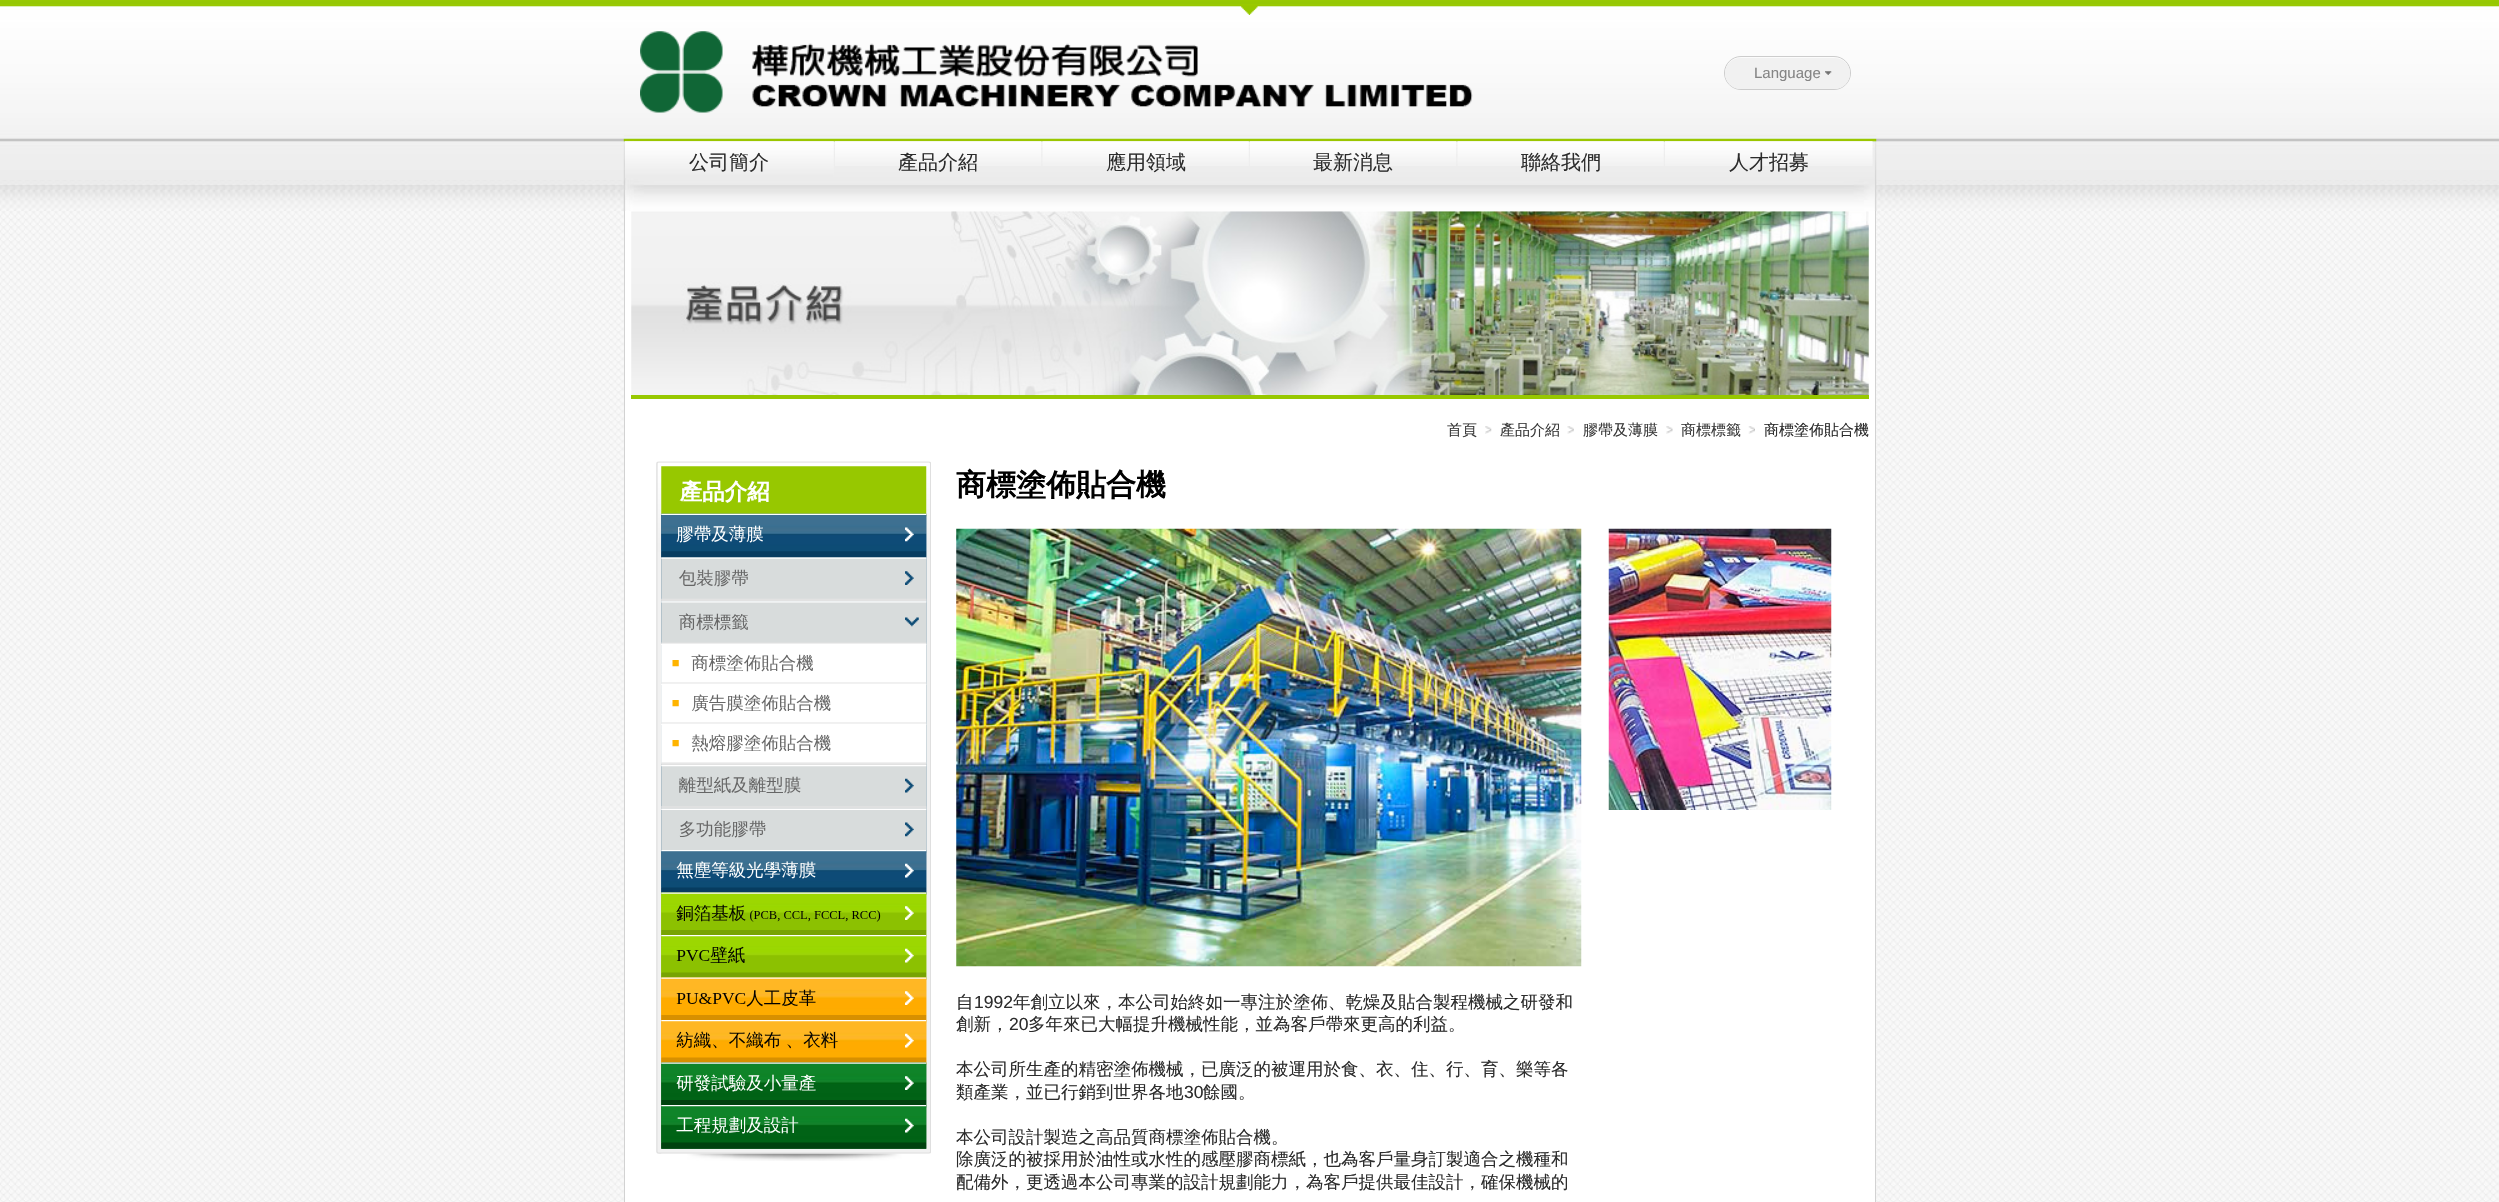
#include "include/core/SkBlurTypes.h"
#include "include/core/SkCanvas.h"
#include "include/core/SkData.h"
#include "include/core/SkFont.h"
#include "include/core/SkFontMgr.h"
#include "include/core/SkImage.h"
#include "include/core/SkMaskFilter.h"
#include "include/core/SkPaint.h"
#include "include/core/SkPathBuilder.h"
#include "include/core/SkTextBlob.h"
#include "include/effects/SkDashPathEffect.h"
#include "include/effects/SkGradientShader.h"
#include "include/utils/SkParsePath.h"

extern sk_sp<SkFontMgr> fontMgr;

void draw(SkCanvas* canvas) {
    SkPaint p;
    p.setAntiAlias(true);
    auto font = [&](const char* family, int weight, float size, bool italic = false) {
        SkFontStyle style(weight, SkFontStyle::kNormal_Width,
            italic ? SkFontStyle::kItalic_Slant : SkFontStyle::kUpright_Slant);
        SkFont result(fontMgr->matchFamilyStyle(family, style), size);
        result.setSubpixel(true);
        return result;
    };
    auto drawPhoto = [&](const char* path, float l, float t, float r, float b) {
        auto image = SkImages::DeferredFromEncodedData(SkData::MakeFromFileName(path));
        canvas->drawImageRect(image, SkRect::MakeLTRB(l, t, r, b), SkSamplingOptions());
    };
    canvas->clear(0xFFFFFFFF);
    drawPhoto("media/1.png", 0, 211, 2499, 1202);
    drawPhoto("media/2.png", 0, 0, 2499, 211);
    drawPhoto("media/3.png", 623, 135, 1877, 212);
    drawPhoto("media/4.png", 1241, 6, 1258, 15);
    drawPhoto("media/5.png", 640, 31, 1473, 113);
    p.setStyle(SkPaint::kStroke_Style);
    p.setStrokeWidth(1);
    p.setColor(0xFFCCCCCC);
    canvas->drawRoundRect(SkRect::MakeLTRB(1724.5f, 56.5f, 1850.5f, 89.5f), 16.5f, 16.5f, p);
    p.setStyle(SkPaint::kFill_Style);
    p.setColor(0xFFF1F1F1);
    canvas->drawRoundRect(SkRect::MakeLTRB(1725, 58, 1850, 89), 15.5f, 15.5f, p);
    auto font1 = font("Liberation Sans", 400, 15);
    p.setColor(0xFF858585);
    canvas->drawString("Language", 1754, 78, font1, p);
    drawPhoto("media/6.png", 1825, 71, 1832, 75);
    drawPhoto("media/7.png", 625, 141, 834, 178);
    auto font2 = font("WenQuanYi Zen Hei", 500, 20);
    p.setColor(0xFF2C2C2C);
    canvas->drawString("公司簡介", 689, 169, font2, p);
    drawPhoto("media/8.png", 835, 141, 1042, 166);
    canvas->drawString("產品介紹", 898, 169, font2, p);
    drawPhoto("media/9.png", 1042, 141, 1249, 166);
    canvas->drawString("應用領域", 1106, 169, font2, p);
    drawPhoto("media/8.png", 1250, 141, 1457, 166);
    canvas->drawString("最新消息", 1313, 169, font2, p);
    drawPhoto("media/9.png", 1457, 141, 1664, 166);
    canvas->drawString("聯絡我們", 1521, 169, font2, p);
    drawPhoto("media/10.png", 1665, 141, 1873, 166);
    canvas->drawString("人才招募", 1729, 169, font2, p);
    {
        const struct { float l, t, r, b; SkColor color; } items[] = {
            {625, 211, 1875, 1202, 0xFFFFFFFF},
            {1875, 211, 1876, 1202, 0xFFD2D2D2},
            {624, 211, 625, 1202, 0xFFD2D2D2},
            {631, 395, 1869, 399, 0xFF97C800},
        };
        for (auto [l, t, r, b, color] : items) {
            p.setColor(color);
            canvas->drawRect(SkRect::MakeLTRB(l, t, r, b), p);
        }
    }
    drawPhoto("media/11.png", 631, 211, 1869, 395);
    auto font3 = font("WenQuanYi Zen Hei", 500, 15);
    p.setColor(0xFF3A3A3A);
    canvas->drawString("首頁", 1447, 435, font3, p);
    drawPhoto("media/12.png", 1485, 426, 1492, 434);
    canvas->drawString("產品介紹", 1500, 435, font3, p);
    drawPhoto("media/13.png", 1567, 426, 1574, 434);
    canvas->drawString("膠帶及薄膜", 1583, 435, font3, p);
    drawPhoto("media/14.png", 1666, 426, 1673, 434);
    canvas->drawString("商標標籤", 1681, 435, font3, p);
    drawPhoto("media/15.png", 1748, 426, 1755, 434);
    p.setColor(0xFF2C2C2C);
    canvas->drawString("商標塗佈貼合機", 1764, 435, font3, p);
    drawPhoto("media/16.png", 656, 461, 931, 1161);
    auto font4 = font("WenQuanYi Zen Hei", 700, 30);
    p.setColor(0xFF000000);
    canvas->drawString("商標塗佈貼合機", 956, 495, font4, p);
    drawPhoto("media/17.png", 1608, 528, 1832, 810);
    drawPhoto("media/18.png", 956, 528, 1582, 967);
    auto font5 = font("WenQuanYi Zen Hei", 500, 17.5f);
    p.setColor(0xFF2C2C2C);
    canvas->drawString("自", 956, 1008, font5, p);
    auto font6 = font("Liberation Sans", 400, 17.5f);
    canvas->drawString("1992", 974, 1008, font6, p);
    canvas->drawString("年創立以來，本公司始終如一專注於塗佈、乾燥及貼合製程機械之研發和", 1013, 1008, font5, p);
    canvas->drawString("創新，", 956, 1030, font5, p);
    canvas->drawString("20", 1009, 1030, font6, p);
    {
        const struct { const char* s; float x, y; } items[] = {
            {"多年來已大幅提升機械性能，並為客戶帶來更高的利益。", 1028, 1030},
            {"本公司所生產的精密塗佈機械，已廣泛的被運用於食、衣、住、行、育、樂等各", 956, 1075},
            {"類產業，並已行銷到世界各地", 956, 1098},
        };
        for (auto [s, x, y] : items) {
            canvas->drawString(s, x, y, font5, p);
        }
    }
    canvas->drawString("30", 1184, 1098, font6, p);
    {
        const struct { const char* s; float x, y; } items[] = {
            {"餘國。", 1203, 1098},
            {"本公司設計製造之高品質商標塗佈貼合機。", 956, 1143},
            {"除廣泛的被採用於油性或水性的感壓膠商標紙，也為客戶量身訂製適合之機種和", 956, 1165},
            {"配備外，更透過本公司專業的設計規劃能力，為客戶提供最佳設計，確保機械的", 956, 1188},
        };
        for (auto [s, x, y] : items) {
            canvas->drawString(s, x, y, font5, p);
        }
    }
}
